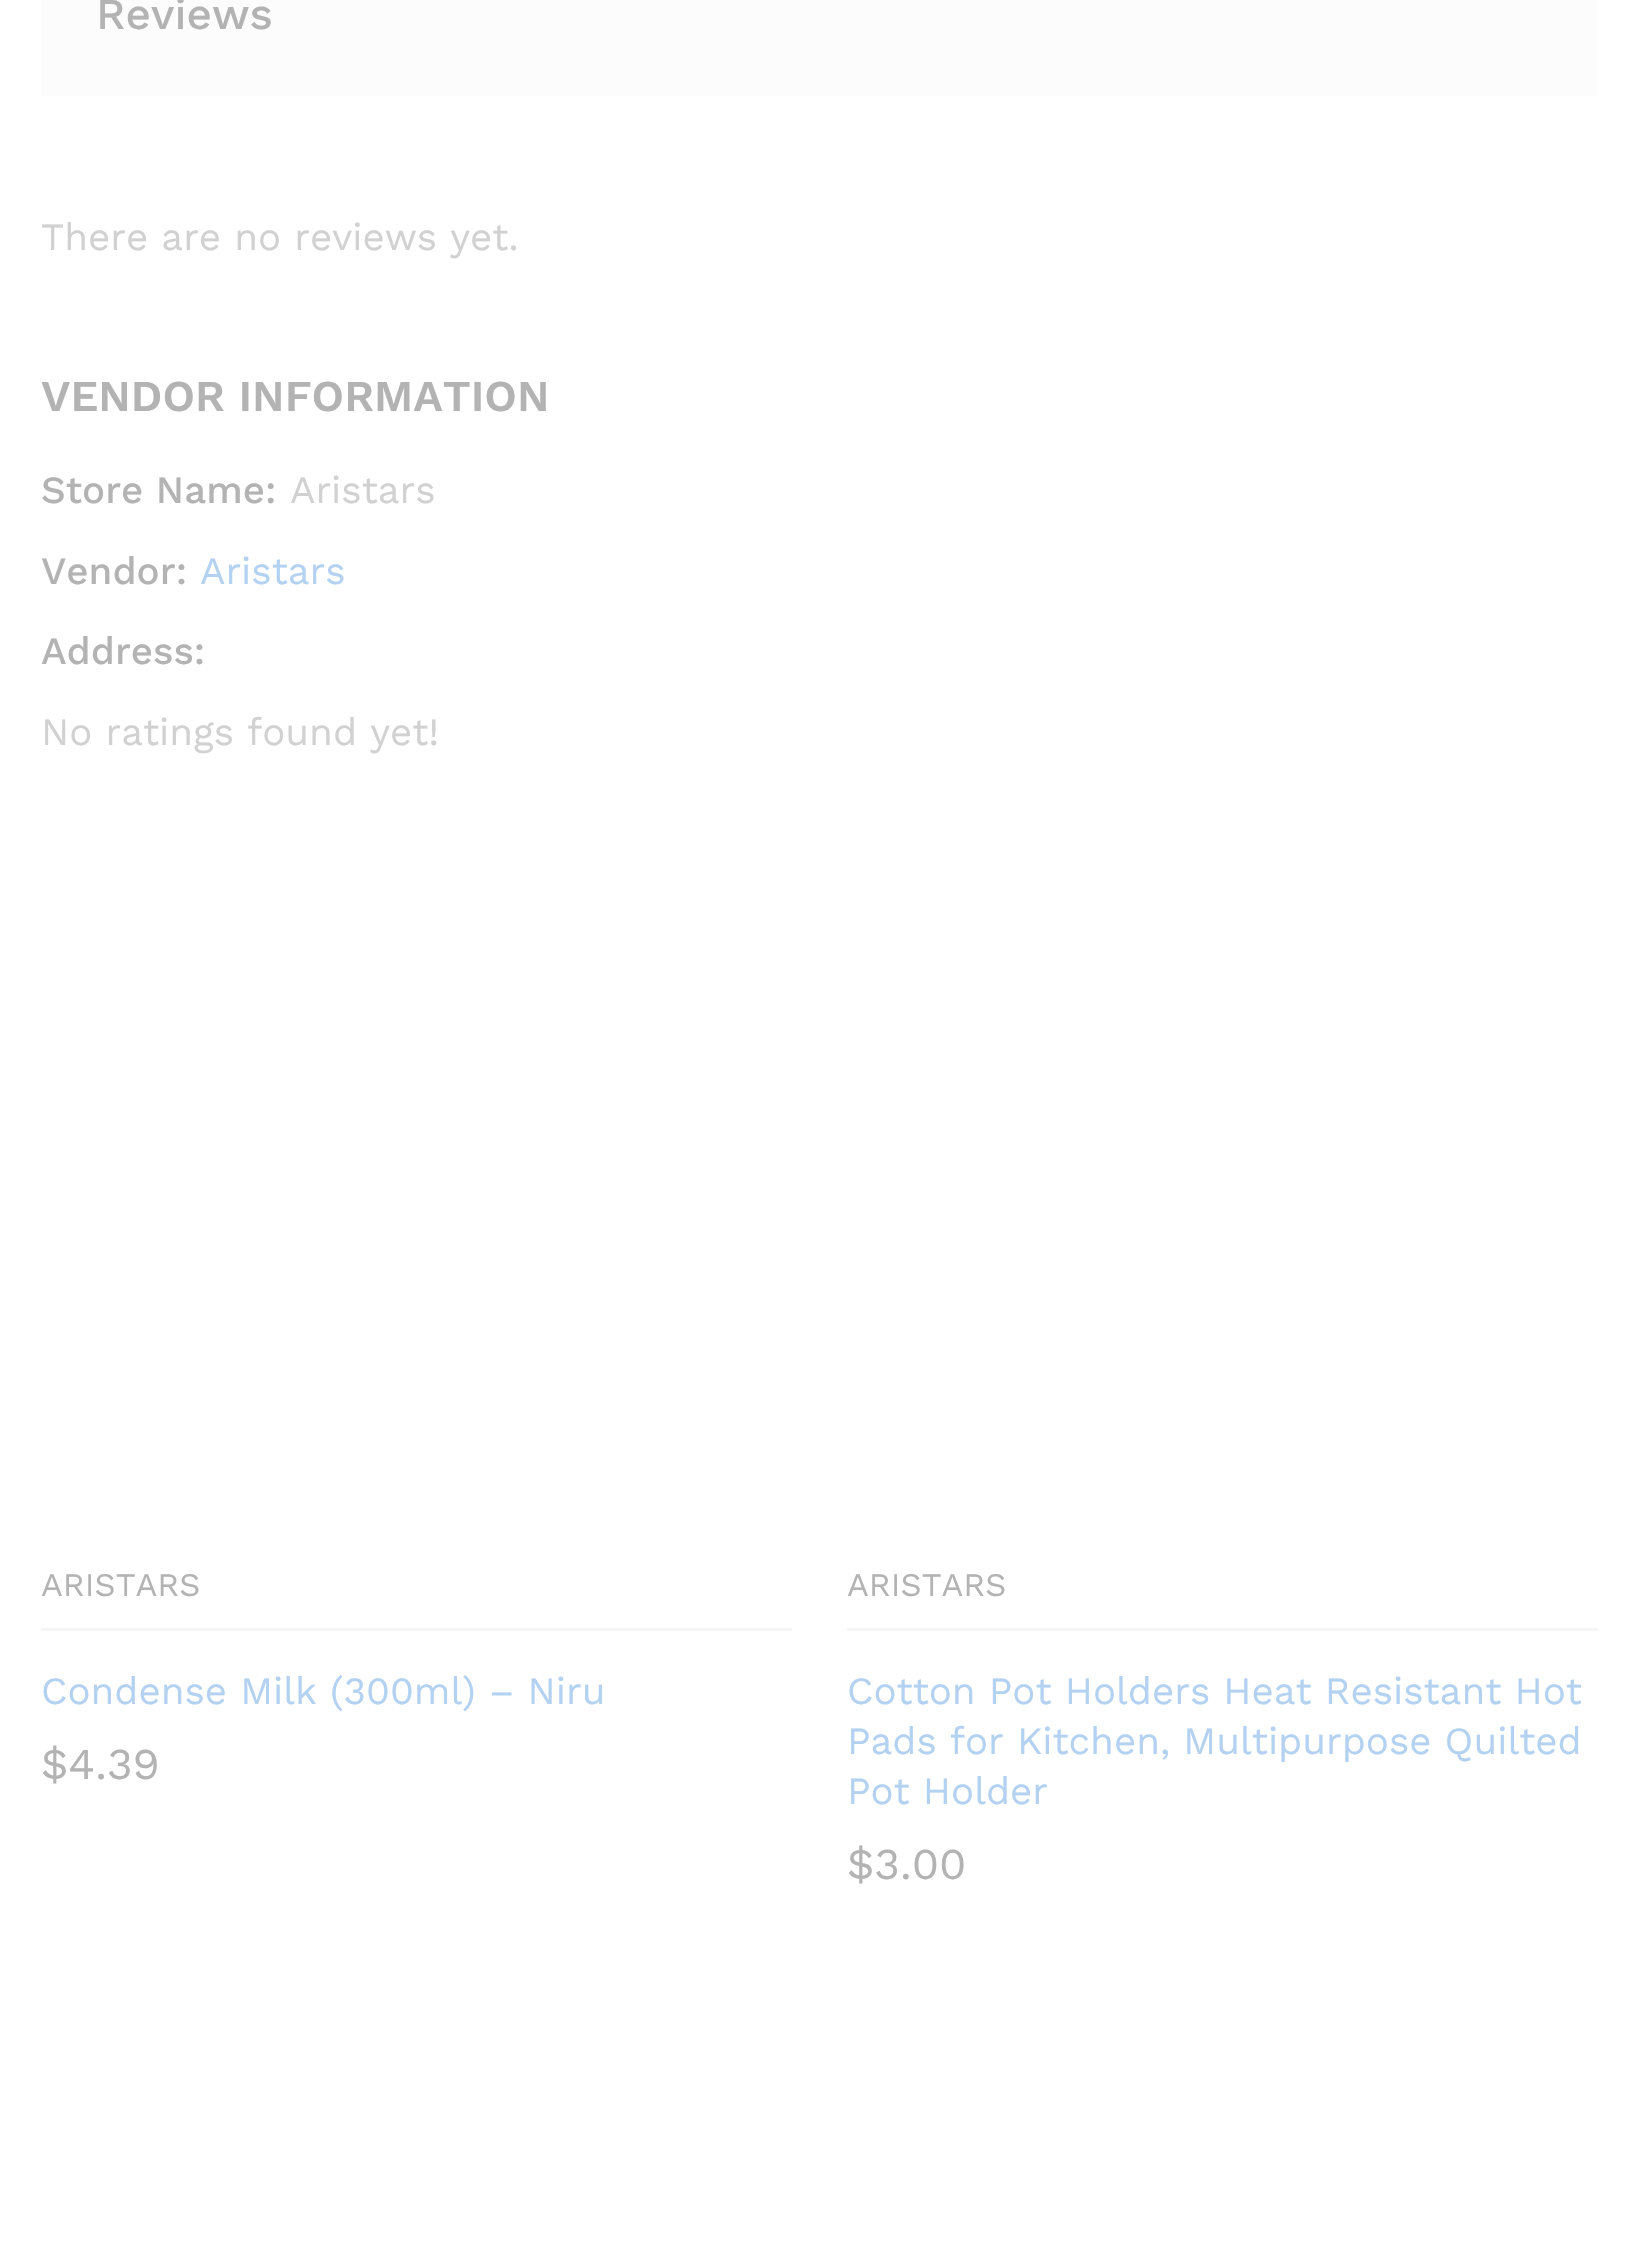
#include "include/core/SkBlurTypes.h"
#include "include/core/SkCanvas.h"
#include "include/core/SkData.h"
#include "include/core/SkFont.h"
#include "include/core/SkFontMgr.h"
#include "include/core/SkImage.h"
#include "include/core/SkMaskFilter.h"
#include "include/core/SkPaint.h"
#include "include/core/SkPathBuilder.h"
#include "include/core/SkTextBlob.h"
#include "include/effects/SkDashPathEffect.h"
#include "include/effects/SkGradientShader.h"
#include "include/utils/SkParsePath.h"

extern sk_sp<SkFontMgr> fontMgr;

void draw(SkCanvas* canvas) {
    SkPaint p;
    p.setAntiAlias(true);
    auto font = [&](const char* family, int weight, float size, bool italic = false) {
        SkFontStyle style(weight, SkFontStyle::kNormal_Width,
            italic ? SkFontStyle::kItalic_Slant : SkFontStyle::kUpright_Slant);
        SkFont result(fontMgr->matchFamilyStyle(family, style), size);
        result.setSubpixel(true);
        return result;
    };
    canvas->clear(0xFFFFFFFF);
    p.setColor(0xFFFCFCFC);
    canvas->drawRect(SkRect::MakeLTRB(41, 0, 1598, 96), p);
    auto font1 = font("Work Sans", 500, 44);
    p.setColor(0xFFB3B3B3);
    canvas->drawString("Reviews", 96, 29, font1, p);
    auto font2 = font("Work Sans", 400, 38.5f);
    p.setColor(0xFFD1D1D1);
    canvas->drawString("There are no reviews yet.", 41, 250, font2, p);
    auto font3 = font("Work Sans", 600, 44);
    p.setColor(0xFFB3B3B3);
    canvas->drawString("VENDOR INFORMATION", 41, 411, font3, p);
    auto font4 = font("Work Sans", 500, 38.5f);
    canvas->drawString("Store Name:", 41, 503, font4, p);
    p.setColor(0xFFD1D1D1);
    canvas->drawString("Aristars", 290, 503, font2, p);
    p.setColor(0xFFB3B3B3);
    canvas->drawString("Vendor:", 41, 584, font4, p);
    p.setColor(0xFFB3D1F0);
    canvas->drawString("Aristars", 200, 584, font2, p);
    p.setColor(0xFFB3B3B3);
    canvas->drawString("Address:", 41, 664, font4, p);
    p.setColor(0xFFD1D1D1);
    canvas->drawString("No ratings found yet!", 41, 745, font2, p);
    p.setColor(0xFFF6F6F6);
    canvas->drawRect(SkRect::MakeLTRB(41, 1628, 792, 1631), p);
    auto font5 = font("Work Sans", 400, 33);
    p.setColor(0xFFB3B3B3);
    canvas->drawString("ARISTARS", 41, 1596, font5, p);
    p.setColor(0xFFB3D1F0);
    canvas->drawString("Condense Milk (300ml) – Niru", 41, 1704, font2, p);
    auto font6 = font("Work Sans", 400, 44);
    p.setColor(0xFFB3B3B3);
    canvas->drawString("$4.39", 41, 1779, font6, p);
    p.setColor(0xFFF6F6F6);
    canvas->drawRect(SkRect::MakeLTRB(847, 1628, 1598, 1631), p);
    p.setColor(0xFFB3B3B3);
    canvas->drawString("ARISTARS", 847, 1596, font5, p);
    p.setColor(0xFFB3D1F0);
    {
        const struct { const char* s; float x, y; } items[] = {
            {"Cotton Pot Holders Heat Resistant Hot", 847, 1704},
            {"Pads for Kitchen, Multipurpose Quilted", 847, 1754},
            {"Pot Holder", 847, 1804},
        };
        for (auto [s, x, y] : items) {
            canvas->drawString(s, x, y, font2, p);
        }
    }
    p.setColor(0xFFB3B3B3);
    canvas->drawString("$3.00", 847, 1879, font6, p);
}
